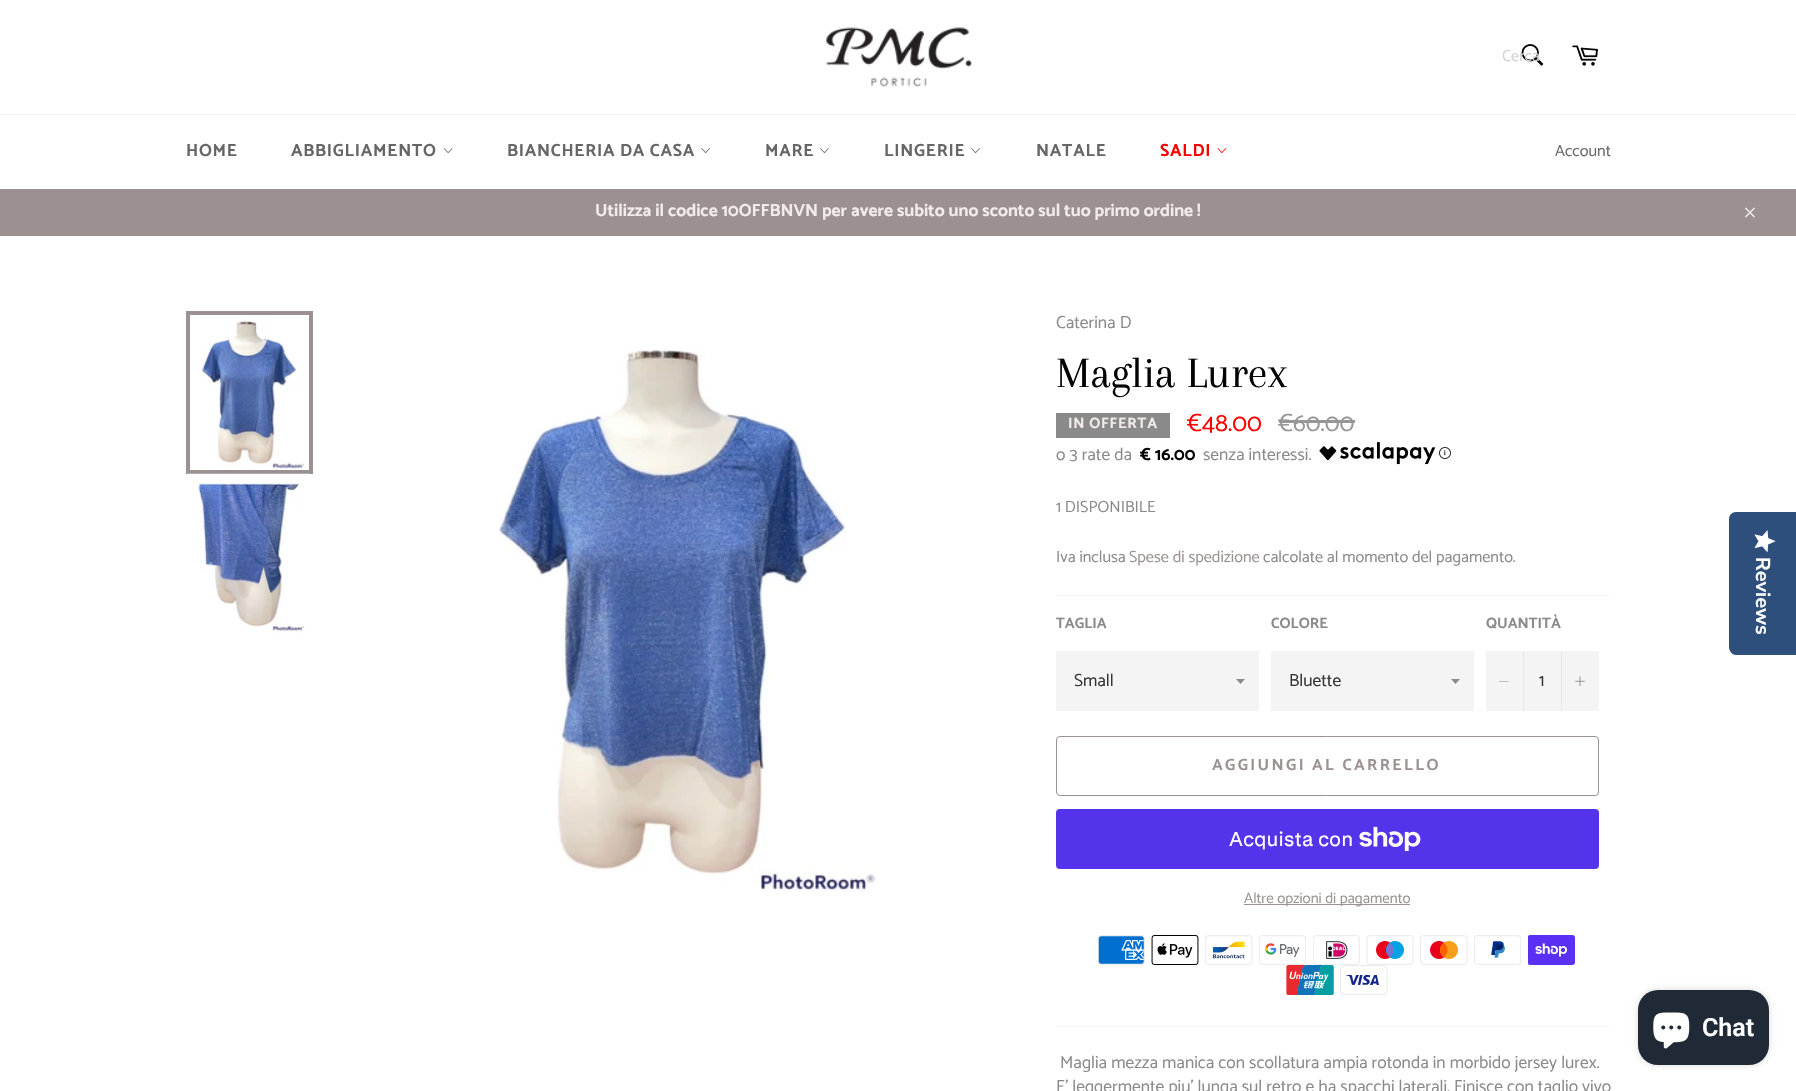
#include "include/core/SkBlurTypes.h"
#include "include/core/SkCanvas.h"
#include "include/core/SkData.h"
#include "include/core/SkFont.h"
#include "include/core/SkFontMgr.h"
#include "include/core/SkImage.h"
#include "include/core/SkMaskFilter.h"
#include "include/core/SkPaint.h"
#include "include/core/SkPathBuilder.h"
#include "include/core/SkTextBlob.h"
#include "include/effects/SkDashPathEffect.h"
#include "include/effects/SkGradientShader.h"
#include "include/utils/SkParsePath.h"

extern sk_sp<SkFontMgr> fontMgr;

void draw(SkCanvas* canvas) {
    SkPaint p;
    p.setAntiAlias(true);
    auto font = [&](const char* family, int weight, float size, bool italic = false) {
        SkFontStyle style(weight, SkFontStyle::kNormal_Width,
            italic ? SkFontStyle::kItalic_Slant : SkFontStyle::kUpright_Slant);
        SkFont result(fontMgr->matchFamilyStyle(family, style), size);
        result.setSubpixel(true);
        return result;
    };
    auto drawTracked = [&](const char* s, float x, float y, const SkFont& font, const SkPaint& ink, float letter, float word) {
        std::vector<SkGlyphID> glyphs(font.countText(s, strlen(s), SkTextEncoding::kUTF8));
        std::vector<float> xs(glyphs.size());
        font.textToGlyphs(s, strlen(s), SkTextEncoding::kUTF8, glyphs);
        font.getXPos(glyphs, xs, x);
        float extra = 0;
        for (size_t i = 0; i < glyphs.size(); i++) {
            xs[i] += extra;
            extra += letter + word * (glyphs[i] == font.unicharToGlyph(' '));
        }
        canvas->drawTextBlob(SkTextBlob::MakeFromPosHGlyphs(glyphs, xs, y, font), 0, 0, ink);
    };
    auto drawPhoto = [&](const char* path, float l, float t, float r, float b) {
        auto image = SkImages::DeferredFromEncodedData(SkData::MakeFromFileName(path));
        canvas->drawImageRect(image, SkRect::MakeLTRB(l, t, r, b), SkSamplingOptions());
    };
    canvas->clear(0xFFFFFFFF);
    drawPhoto("media/1.png", 826, 27, 972, 87);
    drawPhoto("media/2.png", 1521, 44, 1544, 66);
    canvas->save();
    canvas->clipRect(SkRect::MakeLTRB(1503, 44, 1543, 70));
    auto font1 = font("Catamaran", 400, 16.25f);
    p.setColor(0xFFD1D1D1);
    canvas->drawString("Cerca", 1502, 61, font1, p);
    canvas->restore();
    drawPhoto("media/3.png", 1572, 45, 1598, 66);
    p.setColor(0xFFF2F2F2);
    canvas->drawRect(SkRect::MakeLTRB(0, 114, 1796, 115), p);
    auto font2 = font("Catamaran", 700, 17.5f);
    p.setColor(0xFF666666);
    drawTracked("HOME", 186, 156, font2, p, 0.75f, 0);
    drawTracked("ABBIGLIAMENTO", 291, 156, font2, p, 0.75f, 0);
    drawPhoto("media/4.png", 443, 148, 453, 154);
    drawTracked("BIANCHERIA DA CASA", 507, 156, font2, p, 0.75f, 0);
    drawPhoto("media/5.png", 701, 148, 710, 154);
    drawTracked("MARE", 765, 156, font2, p, 0.75f, 0);
    drawPhoto("media/6.png", 820, 148, 829, 154);
    drawTracked("LINGERIE", 884, 156, font2, p, 0.75f, 0);
    drawPhoto("media/5.png", 971, 148, 980, 154);
    drawTracked("NATALE", 1036, 156, font2, p, 0.75f, 0);
    p.setColor(0xFFFF0000);
    drawTracked("SALDI", 1160, 156, font2, p, 0.75f, 0);
    drawPhoto("media/7.png", 1217, 148, 1227, 154);
    p.setColor(0xFF666666);
    canvas->drawString("Account", 1555, 156, font1, p);
    p.setColor(0xFF9B9191);
    canvas->drawRect(SkRect::MakeLTRB(0, 189, 1796, 236), p);
    p.setColor(0xFFF3EBEB);
    canvas->drawString("Utilizza il codice 10OFFBNVN per avere subito uno sconto sul tuo primo ordine !", 595, 216, font2, p);
    drawPhoto("media/8.png", 1745, 207, 1755, 218);
    drawPhoto("media/9.png", 201, 319, 305, 470);
    p.setStyle(SkPaint::kStroke_Style);
    p.setStrokeWidth(4);
    p.setColor(0xFF9B9191);
    canvas->drawRect(SkRect::MakeLTRB(188, 313, 311, 472), p);
    drawPhoto("media/10.png", 187, 473, 310, 633);
    drawPhoto("media/11.png", 498, 349, 876, 891);
    auto font3 = font("Catamaran", 400, 17.5f);
    p.setStyle(SkPaint::kFill_Style);
    p.setColor(0xFF8B8A8A);
    canvas->drawString("Caterina D", 1056, 328, font3, p);
    auto font4 = font("Arapey", 400, 45);
    p.setColor(0xFF030303);
    canvas->drawString("Maglia Lurex", 1056, 387, font4, p);
    p.setColor(0xFF8B8A8A);
    canvas->drawRect(SkRect::MakeLTRB(1056, 413, 1170, 438), p);
    auto font5 = font("Catamaran", 700, 15);
    p.setColor(0xFFF3EBEB);
    drawTracked("IN OFFERTA", 1068, 428, font5, p, 0.75f, 0);
    auto font6 = font("Catamaran", 400, 25);
    p.setColor(0xFFFF0000);
    canvas->drawString("€48.00", 1187, 431, font6, p);
    p.setColor(0xFF989797);
    canvas->drawString("€60.00", 1278, 431, font6, p);
    canvas->drawRect(SkRect::MakeLTRB(1279, 420, 1355, 423), p);
    p.setColor(0xFF8B8A8A);
    canvas->drawString("o 3 rate da", 1056, 460, font3, p);
    p.setColor(0xFF030303);
    canvas->drawString("€ 16.00", 1140, 460, font2, p);
    p.setColor(0xFF8B8A8A);
    canvas->drawString("senza interessi.", 1203, 460, font3, p);
    drawPhoto("media/12.png", 1319, 442, 1436, 465);
    drawPhoto("media/13.png", 1439, 447, 1451, 459);
    canvas->drawString("1 DISPONIBILE", 1056, 512, font1, p);
    canvas->drawString("Iva inclusa", 1056, 562, font1, p);
    p.setColor(0xFF9B9191);
    canvas->drawString("Spese di spedizione", 1129, 562, font1, p);
    p.setColor(0xFF8B8A8A);
    canvas->drawString("calcolate al momento del pagamento.", 1263, 562, font1, p);
    p.setColor(0xFFF7F7F7);
    canvas->drawRect(SkRect::MakeLTRB(1056, 595, 1611, 596), p);
    p.setColor(0xFF8B8A8A);
    canvas->drawString("TAGLIA", 1056, 628, font5, p);
    p.setColor(0xFFF4F4F4);
    canvas->drawRect(SkRect::MakeLTRB(1056, 651, 1259, 711), p);
    p.setColor(0xFF8B8A8A);
    canvas->drawPath(SkPathBuilder().moveTo(1236, 679).lineTo(1240.5f, 684).lineTo(1245, 679).close().detach(), p);
    p.setColor(0xFF333333);
    canvas->drawString("Small", 1074, 686, font3, p);
    p.setColor(0xFF8B8A8A);
    canvas->drawString("COLORE", 1271, 628, font5, p);
    p.setColor(0xFFF4F4F4);
    canvas->drawRect(SkRect::MakeLTRB(1271, 651, 1474, 711), p);
    p.setColor(0xFF8B8A8A);
    canvas->drawPath(SkPathBuilder().moveTo(1451, 679).lineTo(1455.5f, 684).lineTo(1460, 679).close().detach(), p);
    p.setColor(0xFF333333);
    canvas->drawString("Bluette", 1289, 686, font3, p);
    p.setColor(0xFF8B8A8A);
    canvas->drawString("QUANTITÀ", 1486, 628, font5, p);
    p.setColor(0xFFF4F4F4);
    canvas->drawRect(SkRect::MakeLTRB(1486, 651, 1599, 711), p);
    p.setColor(0xFFE7E7E7);
    canvas->drawRect(SkRect::MakeLTRB(1523, 651, 1524, 711), p);
    p.setColor(0xFF8B8A8A);
    canvas->drawPath(SkPathBuilder(SkPathFillType::kEvenOdd).moveTo(1508.5f, 681).lineTo(1508.5f, 681.5f).lineTo(1499, 681.5f).lineTo(1499, 681).close().detach(), p);
    p.setColor(0xFF333333);
    canvas->drawString("1", 1539, 686, font3, p);
    p.setColor(0xFFE7E7E7);
    canvas->drawRect(SkRect::MakeLTRB(1561, 651, 1562, 711), p);
    drawPhoto("media/14.png", 1575, 676, 1585, 686);
    p.setStyle(SkPaint::kStroke_Style);
    p.setStrokeWidth(1);
    p.setColor(0xFF9B9191);
    canvas->drawRoundRect(SkRect::MakeLTRB(1056.5f, 736.5f, 1598.5f, 795.5f), 3.5f, 3.5f, p);
    auto font7 = font("Catamaran", 700, 16.25f);
    p.setStyle(SkPaint::kFill_Style);
    drawTracked("AGGIUNGI AL CARRELLO", 1212, 770, font7, p, 2.4f, 0);
    p.setColor(0xFF5433EB);
    canvas->drawRoundRect(SkRect::MakeLTRB(1056, 809, 1599, 869), 4, 4, p);
    auto font8 = font("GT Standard", 400, 20);
    p.setColor(0xFFFFFFFF);
    canvas->drawString("Acquista con", 1229, 846, font8, p);
    drawPhoto("media/15.png", 1359, 826, 1421, 851);
    p.setColor(0xFF9B9191);
    canvas->drawRect(SkRect::MakeLTRB(1244, 904, 1410, 905), p);
    auto font9 = font("Catamaran", 400, 15);
    canvas->drawString("Altre opzioni di pagamento", 1244, 903, font9, p);
    drawPhoto("media/16.png", 1098, 935, 1145, 965);
    drawPhoto("media/17.png", 1151, 935, 1199, 965);
    drawPhoto("media/18.png", 1205, 935, 1253, 965);
    drawPhoto("media/19.png", 1259, 935, 1306, 965);
    drawPhoto("media/20.png", 1313, 935, 1360, 965);
    drawPhoto("media/21.png", 1366, 935, 1414, 965);
    drawPhoto("media/22.png", 1420, 935, 1468, 965);
    drawPhoto("media/23.png", 1474, 935, 1521, 965);
    drawPhoto("media/24.png", 1528, 935, 1575, 965);
    drawPhoto("media/25.png", 1286, 965, 1334, 995);
    drawPhoto("media/26.png", 1340, 965, 1388, 995);
    p.setColor(0xFFF7F7F7);
    canvas->drawRect(SkRect::MakeLTRB(1056, 1026, 1611, 1027), p);
    p.setColor(0xFF8B8A8A);
    canvas->drawString("Maglia mezza manica con scollatura ampia rotonda in morbido jersey lurex.", 1060, 1068, font3, p);
    canvas->drawString("E' leggermente piu' lunga sul retro e ha spacchi laterali. Finisce con taglio vivo", 1056, 1092, font3, p);
    p.setColor(0xFF2E4F7C);
    canvas->drawPath(SkPathBuilder().moveTo(1796, 512).lineTo(1796, 655).lineTo(1736, 655).cubicTo(1732, 655, 1729, 651, 1729, 647).lineTo(1729, 519).cubicTo(1729, 515, 1732, 512, 1736, 512).close().detach(), p);
    drawPhoto("media/27.png", 1754, 530, 1776, 553);
    auto font10 = font("Nunito Sans", 200, 20);
    p.setColor(0xFFFFFFFF);
    canvas->save();
    canvas->rotate(90, 1756, 557);
    canvas->drawString("Reviews", 1756, 557, font10, p);
    canvas->restore();
    p.setColor(0x26000000);
    p.setMaskFilter(SkMaskFilter::MakeBlur(kNormal_SkBlurStyle, 3));
    canvas->drawRoundRect(SkRect::MakeLTRB(1638, 990, 1769, 1065), 20, 20, p);
    p.setMaskFilter(nullptr);
    p.setColor(0xFF202A36);
    canvas->drawRoundRect(SkRect::MakeLTRB(1638, 990, 1769, 1065), 20, 20, p);
    drawPhoto("media/28.png", 1653, 1012, 1690, 1049);
    auto font11 = font("Roboto", 600, 25);
    p.setColor(0xFFFFFFFF);
    canvas->drawString("Chat", 1702, 1036, font11, p);
}
